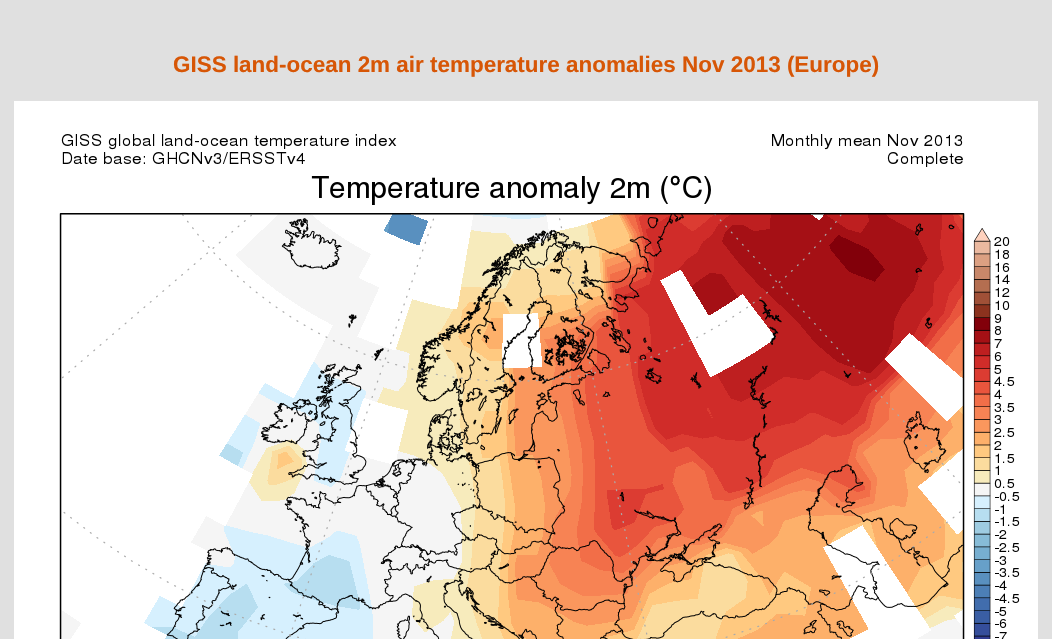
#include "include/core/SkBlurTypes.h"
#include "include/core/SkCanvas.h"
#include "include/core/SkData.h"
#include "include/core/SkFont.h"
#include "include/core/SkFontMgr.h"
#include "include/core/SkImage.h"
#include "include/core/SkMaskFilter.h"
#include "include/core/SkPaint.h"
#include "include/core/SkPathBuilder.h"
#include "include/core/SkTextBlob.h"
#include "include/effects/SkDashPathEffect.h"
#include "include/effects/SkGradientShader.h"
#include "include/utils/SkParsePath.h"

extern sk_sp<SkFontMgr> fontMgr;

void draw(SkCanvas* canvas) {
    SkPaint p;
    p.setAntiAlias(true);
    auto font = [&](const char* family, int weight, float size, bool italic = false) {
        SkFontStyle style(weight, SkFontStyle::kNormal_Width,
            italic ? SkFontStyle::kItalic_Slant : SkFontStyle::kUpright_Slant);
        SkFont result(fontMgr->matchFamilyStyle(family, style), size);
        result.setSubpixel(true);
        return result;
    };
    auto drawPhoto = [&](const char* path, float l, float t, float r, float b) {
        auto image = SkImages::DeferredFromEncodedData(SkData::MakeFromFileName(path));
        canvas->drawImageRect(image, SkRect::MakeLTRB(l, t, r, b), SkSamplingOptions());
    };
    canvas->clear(0xFFE0E0E0);
    auto font1 = font("Liberation Sans", 700, 22.45f);
    p.setColor(0xFFD75606);
    canvas->drawString("GISS land-ocean 2m air temperature anomalies Nov 2013 (Europe)", 173, 72, font1, p);
    drawPhoto("media/1.png", 14, 101, 1038, 639);
}
